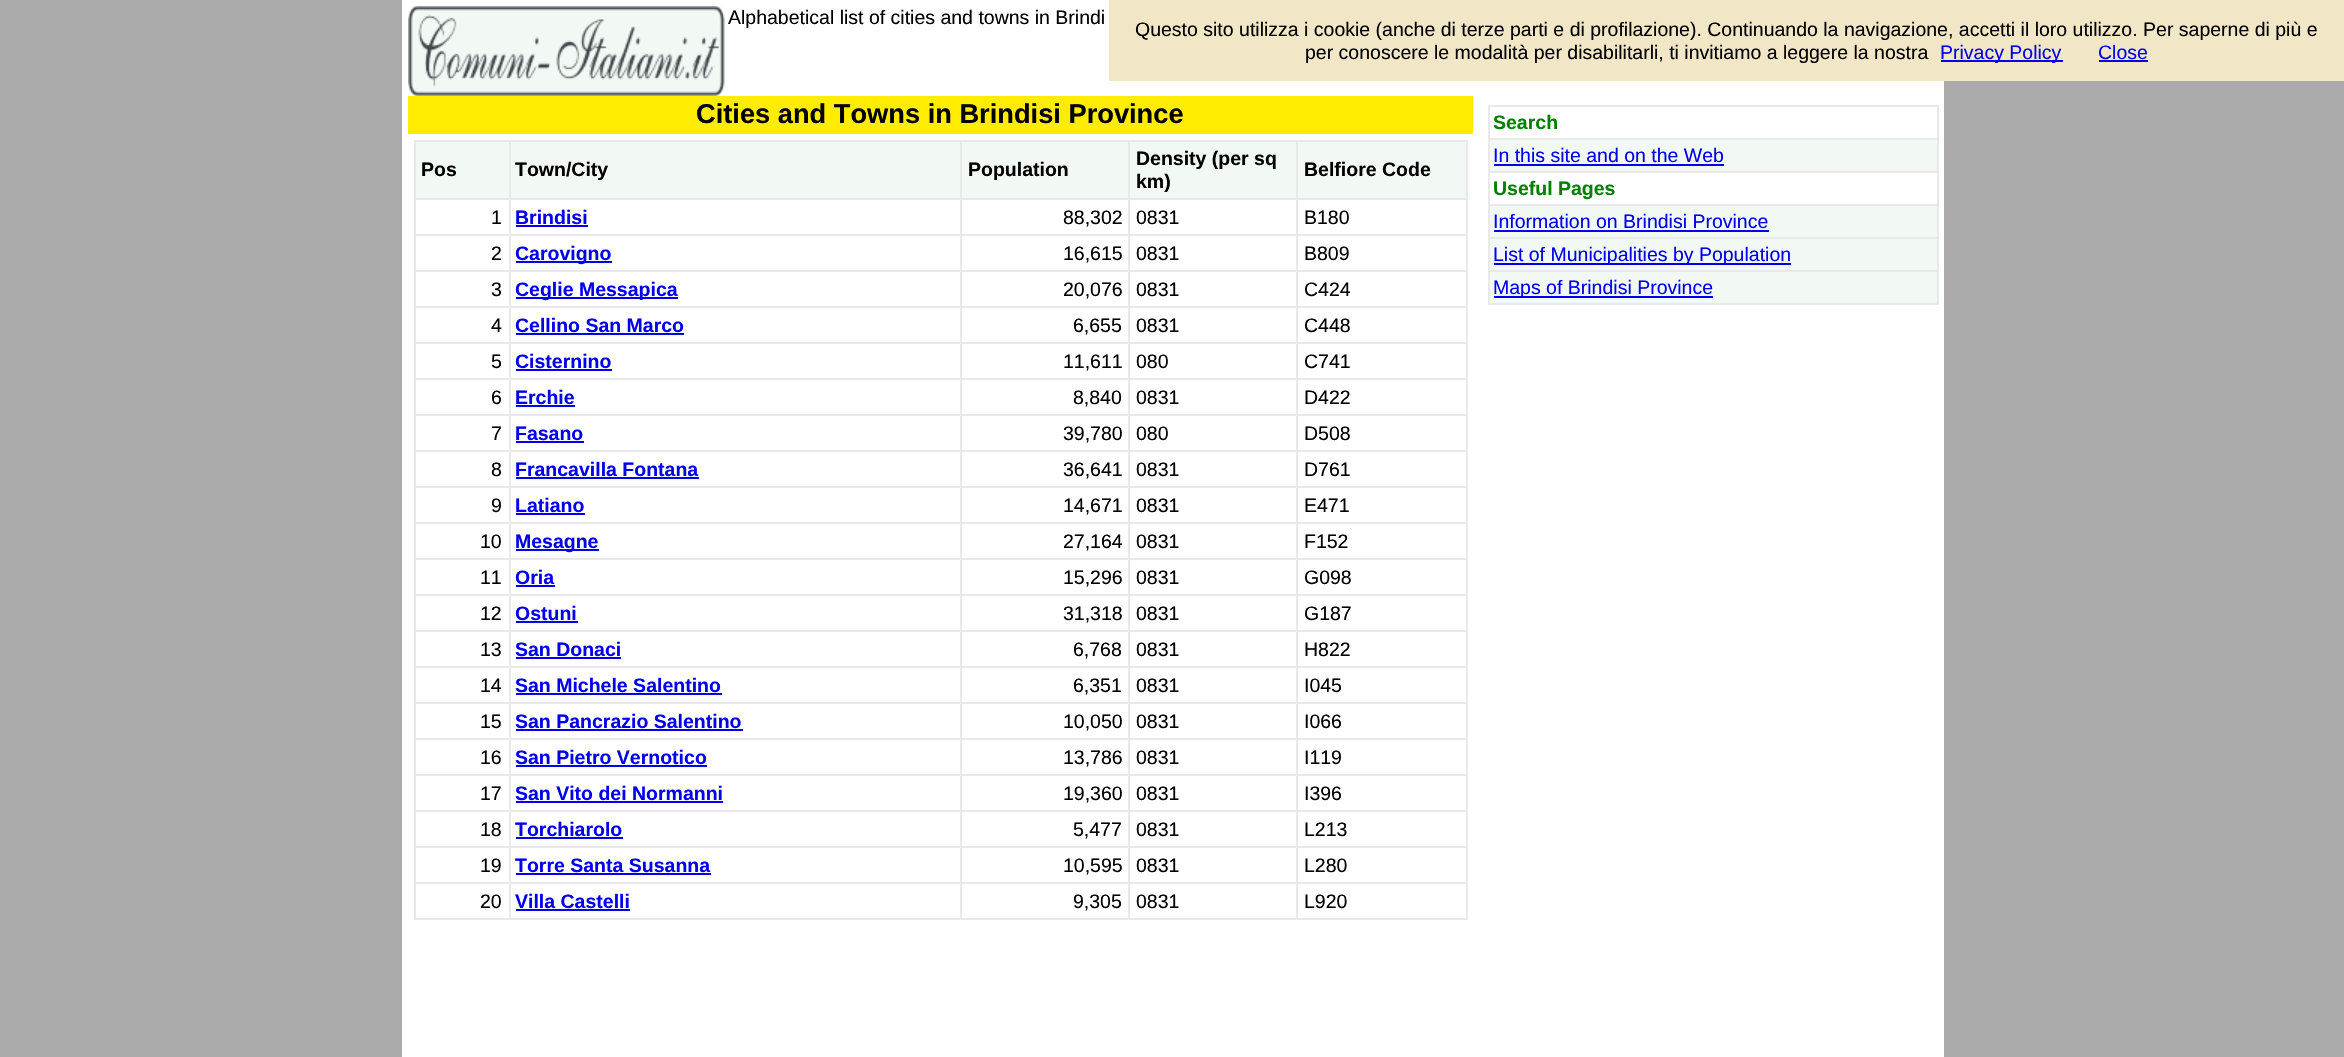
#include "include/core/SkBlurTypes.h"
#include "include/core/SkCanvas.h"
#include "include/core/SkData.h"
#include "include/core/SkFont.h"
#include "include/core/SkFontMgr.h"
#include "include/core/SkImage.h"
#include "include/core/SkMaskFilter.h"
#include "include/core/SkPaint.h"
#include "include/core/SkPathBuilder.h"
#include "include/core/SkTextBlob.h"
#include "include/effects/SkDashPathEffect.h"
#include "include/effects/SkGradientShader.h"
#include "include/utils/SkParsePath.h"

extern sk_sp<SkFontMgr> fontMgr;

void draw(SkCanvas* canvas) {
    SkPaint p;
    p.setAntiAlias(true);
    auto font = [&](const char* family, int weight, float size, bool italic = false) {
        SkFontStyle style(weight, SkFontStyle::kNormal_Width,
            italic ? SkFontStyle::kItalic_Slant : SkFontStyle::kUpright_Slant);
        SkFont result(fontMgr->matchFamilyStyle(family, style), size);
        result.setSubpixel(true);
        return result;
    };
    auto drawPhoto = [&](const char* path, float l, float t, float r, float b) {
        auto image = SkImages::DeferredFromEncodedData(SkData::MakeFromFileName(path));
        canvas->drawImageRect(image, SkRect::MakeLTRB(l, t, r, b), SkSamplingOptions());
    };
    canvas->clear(0xFFAAAAAA);
    p.setColor(0xFFFFFFFF);
    canvas->drawRect(SkRect::MakeLTRB(402, 0, 1944, 1057), p);
    drawPhoto("media/1.png", 408, 6, 725, 96);
    auto font1 = font("Liberation Sans", 400, 19.5f);
    p.setColor(0xFF000000);
    canvas->drawString("Alphabetical list of cities and towns in Brindi", 728, 24, font1, p);
    p.setColor(0xFFF1E6C6);
    canvas->drawRect(SkRect::MakeLTRB(1109, 0, 2344, 81), p);
    p.setColor(0xFF000000);
    canvas->drawString("Questo sito utilizza i cookie (anche di terze parti e di profilazione). Continuando la navigazione, accetti il loro utilizzo. Per saperne di più e", 1135, 36, font1, p);
    canvas->drawString("per conoscere le modalità per disabilitarli, ti invitiamo a leggere la nostra", 1305, 59, font1, p);
    p.setColor(0xFF0000EE);
    canvas->drawRect(SkRect::MakeLTRB(1941, 60, 2063, 62), p);
    canvas->drawString("Privacy Policy", 1940, 59, font1, p);
    canvas->drawString("Close", 2098, 59, font1, p);
    canvas->drawRect(SkRect::MakeLTRB(2099, 60, 2148, 62), p);
    p.setColor(0xFFFFEC00);
    canvas->drawRect(SkRect::MakeLTRB(408, 96, 1473, 134), p);
    auto font2 = font("Liberation Sans", 700, 27.25f);
    p.setColor(0xFF000000);
    canvas->drawString("Cities and Towns in Brindisi Province", 696, 123, font2, p);
    {
        const struct { float l, t, r, b; SkColor color; } items[] = {
            {414, 140, 1467, 142, 0xFFE9E9E9},
            {1466, 140, 1468, 920, 0xFFE9E9E9},
            {414, 918, 1467, 920, 0xFFE9E9E9},
            {414, 140, 416, 920, 0xFFE9E9E9},
            {416, 142, 509, 198, 0xFFF2F8F4},
        };
        for (auto [l, t, r, b, color] : items) {
            p.setColor(color);
            canvas->drawRect(SkRect::MakeLTRB(l, t, r, b), p);
        }
    }
    auto font3 = font("Liberation Sans", 700, 19.5f);
    p.setColor(0xFF000000);
    canvas->drawString("Pos", 421, 176, font3, p);
    {
        const struct { float l, t, r, b; SkColor color; } items[] = {
            {511, 142, 960, 198, 0xFFF2F8F4},
            {1296, 198, 1467, 200, 0xFFE9E9E9},
            {1296, 234, 1467, 236, 0xFFE9E9E9},
            {1296, 270, 1467, 272, 0xFFE9E9E9},
            {1296, 306, 1467, 308, 0xFFE9E9E9},
            {1296, 342, 1467, 344, 0xFFE9E9E9},
            {1296, 378, 1467, 380, 0xFFE9E9E9},
            {1296, 414, 1467, 416, 0xFFE9E9E9},
            {1296, 450, 1467, 452, 0xFFE9E9E9},
            {1296, 486, 1467, 488, 0xFFE9E9E9},
            {1296, 522, 1467, 524, 0xFFE9E9E9},
            {1296, 558, 1467, 560, 0xFFE9E9E9},
            {1296, 594, 1467, 596, 0xFFE9E9E9},
            {1296, 630, 1467, 632, 0xFFE9E9E9},
            {1296, 666, 1467, 668, 0xFFE9E9E9},
            {1296, 702, 1467, 704, 0xFFE9E9E9},
            {1296, 738, 1467, 740, 0xFFE9E9E9},
            {1296, 774, 1467, 776, 0xFFE9E9E9},
            {1296, 810, 1467, 812, 0xFFE9E9E9},
            {1296, 846, 1467, 848, 0xFFE9E9E9},
            {1296, 882, 1467, 884, 0xFFE9E9E9},
            {1296, 882, 1298, 920, 0xFFE9E9E9},
            {1128, 882, 1298, 884, 0xFFE9E9E9},
            {1296, 846, 1298, 884, 0xFFE9E9E9},
            {1128, 846, 1298, 848, 0xFFE9E9E9},
            {1296, 810, 1298, 848, 0xFFE9E9E9},
            {1128, 810, 1298, 812, 0xFFE9E9E9},
            {1296, 774, 1298, 812, 0xFFE9E9E9},
            {1128, 774, 1298, 776, 0xFFE9E9E9},
            {1296, 738, 1298, 776, 0xFFE9E9E9},
            {1128, 738, 1298, 740, 0xFFE9E9E9},
            {1296, 702, 1298, 740, 0xFFE9E9E9},
            {1128, 702, 1298, 704, 0xFFE9E9E9},
            {1296, 666, 1298, 704, 0xFFE9E9E9},
            {1128, 666, 1298, 668, 0xFFE9E9E9},
            {1296, 630, 1298, 668, 0xFFE9E9E9},
            {1128, 630, 1298, 632, 0xFFE9E9E9},
            {1296, 594, 1298, 632, 0xFFE9E9E9},
            {1128, 594, 1298, 596, 0xFFE9E9E9},
            {1296, 558, 1298, 596, 0xFFE9E9E9},
            {1128, 558, 1298, 560, 0xFFE9E9E9},
            {1296, 522, 1298, 560, 0xFFE9E9E9},
            {1128, 522, 1298, 524, 0xFFE9E9E9},
            {1296, 486, 1298, 524, 0xFFE9E9E9},
            {1128, 486, 1298, 488, 0xFFE9E9E9},
            {1296, 450, 1298, 488, 0xFFE9E9E9},
            {1128, 450, 1298, 452, 0xFFE9E9E9},
            {1296, 414, 1298, 452, 0xFFE9E9E9},
            {1128, 414, 1298, 416, 0xFFE9E9E9},
            {1296, 378, 1298, 416, 0xFFE9E9E9},
            {1128, 378, 1298, 380, 0xFFE9E9E9},
            {1296, 342, 1298, 380, 0xFFE9E9E9},
            {1128, 342, 1298, 344, 0xFFE9E9E9},
            {1296, 306, 1298, 344, 0xFFE9E9E9},
            {1128, 306, 1298, 308, 0xFFE9E9E9},
            {1296, 270, 1298, 308, 0xFFE9E9E9},
            {1128, 270, 1298, 272, 0xFFE9E9E9},
            {1296, 234, 1298, 272, 0xFFE9E9E9},
            {1128, 234, 1298, 236, 0xFFE9E9E9},
            {1296, 198, 1298, 236, 0xFFE9E9E9},
            {1128, 198, 1298, 200, 0xFFE9E9E9},
            {1128, 882, 1130, 920, 0xFFE9E9E9},
            {960, 882, 1130, 884, 0xFFE9E9E9},
            {1128, 846, 1130, 884, 0xFFE9E9E9},
            {960, 846, 1130, 848, 0xFFE9E9E9},
            {1128, 810, 1130, 848, 0xFFE9E9E9},
            {960, 810, 1130, 812, 0xFFE9E9E9},
            {1128, 774, 1130, 812, 0xFFE9E9E9},
            {960, 774, 1130, 776, 0xFFE9E9E9},
            {1128, 738, 1130, 776, 0xFFE9E9E9},
            {960, 738, 1130, 740, 0xFFE9E9E9},
            {1128, 702, 1130, 740, 0xFFE9E9E9},
            {960, 702, 1130, 704, 0xFFE9E9E9},
            {1128, 666, 1130, 704, 0xFFE9E9E9},
            {960, 666, 1130, 668, 0xFFE9E9E9},
            {1128, 630, 1130, 668, 0xFFE9E9E9},
            {960, 630, 1130, 632, 0xFFE9E9E9},
            {1128, 594, 1130, 632, 0xFFE9E9E9},
            {960, 594, 1130, 596, 0xFFE9E9E9},
            {1128, 558, 1130, 596, 0xFFE9E9E9},
            {960, 558, 1130, 560, 0xFFE9E9E9},
            {1128, 522, 1130, 560, 0xFFE9E9E9},
            {960, 522, 1130, 524, 0xFFE9E9E9},
            {1128, 486, 1130, 524, 0xFFE9E9E9},
            {960, 486, 1130, 488, 0xFFE9E9E9},
            {1128, 450, 1130, 488, 0xFFE9E9E9},
            {960, 450, 1130, 452, 0xFFE9E9E9},
            {1128, 414, 1130, 452, 0xFFE9E9E9},
            {960, 414, 1130, 416, 0xFFE9E9E9},
            {1128, 378, 1130, 416, 0xFFE9E9E9},
            {960, 378, 1130, 380, 0xFFE9E9E9},
            {1128, 342, 1130, 380, 0xFFE9E9E9},
            {960, 342, 1130, 344, 0xFFE9E9E9},
            {1128, 306, 1130, 344, 0xFFE9E9E9},
            {960, 306, 1130, 308, 0xFFE9E9E9},
            {1128, 270, 1130, 308, 0xFFE9E9E9},
            {960, 270, 1130, 272, 0xFFE9E9E9},
            {1128, 234, 1130, 272, 0xFFE9E9E9},
            {960, 234, 1130, 236, 0xFFE9E9E9},
            {1128, 198, 1130, 236, 0xFFE9E9E9},
            {960, 198, 1130, 200, 0xFFE9E9E9},
            {960, 882, 962, 920, 0xFFE9E9E9},
            {509, 882, 962, 884, 0xFFE9E9E9},
            {960, 846, 962, 884, 0xFFE9E9E9},
            {509, 846, 962, 848, 0xFFE9E9E9},
            {960, 810, 962, 848, 0xFFE9E9E9},
            {509, 810, 962, 812, 0xFFE9E9E9},
            {960, 774, 962, 812, 0xFFE9E9E9},
            {509, 774, 962, 776, 0xFFE9E9E9},
            {960, 738, 962, 776, 0xFFE9E9E9},
            {509, 738, 962, 740, 0xFFE9E9E9},
            {960, 702, 962, 740, 0xFFE9E9E9},
            {509, 702, 962, 704, 0xFFE9E9E9},
            {960, 666, 962, 704, 0xFFE9E9E9},
            {509, 666, 962, 668, 0xFFE9E9E9},
            {960, 630, 962, 668, 0xFFE9E9E9},
            {509, 630, 962, 632, 0xFFE9E9E9},
            {960, 594, 962, 632, 0xFFE9E9E9},
            {509, 594, 962, 596, 0xFFE9E9E9},
            {960, 558, 962, 596, 0xFFE9E9E9},
            {509, 558, 962, 560, 0xFFE9E9E9},
            {960, 522, 962, 560, 0xFFE9E9E9},
            {509, 522, 962, 524, 0xFFE9E9E9},
            {960, 486, 962, 524, 0xFFE9E9E9},
            {509, 486, 962, 488, 0xFFE9E9E9},
            {960, 450, 962, 488, 0xFFE9E9E9},
            {509, 450, 962, 452, 0xFFE9E9E9},
            {960, 414, 962, 452, 0xFFE9E9E9},
            {509, 414, 962, 416, 0xFFE9E9E9},
            {960, 378, 962, 416, 0xFFE9E9E9},
            {509, 378, 962, 380, 0xFFE9E9E9},
            {960, 342, 962, 380, 0xFFE9E9E9},
            {509, 342, 962, 344, 0xFFE9E9E9},
            {960, 306, 962, 344, 0xFFE9E9E9},
            {509, 306, 962, 308, 0xFFE9E9E9},
            {960, 270, 962, 308, 0xFFE9E9E9},
            {509, 270, 962, 272, 0xFFE9E9E9},
            {960, 234, 962, 272, 0xFFE9E9E9},
            {509, 234, 962, 236, 0xFFE9E9E9},
            {960, 198, 962, 236, 0xFFE9E9E9},
            {509, 198, 962, 200, 0xFFE9E9E9},
            {509, 882, 511, 920, 0xFFE9E9E9},
            {414, 882, 510, 884, 0xFFE9E9E9},
            {509, 846, 511, 884, 0xFFE9E9E9},
            {414, 846, 510, 848, 0xFFE9E9E9},
            {509, 810, 511, 848, 0xFFE9E9E9},
            {414, 810, 510, 812, 0xFFE9E9E9},
            {509, 774, 511, 812, 0xFFE9E9E9},
            {414, 774, 510, 776, 0xFFE9E9E9},
            {509, 738, 511, 776, 0xFFE9E9E9},
            {414, 738, 510, 740, 0xFFE9E9E9},
            {509, 702, 511, 740, 0xFFE9E9E9},
            {414, 702, 510, 704, 0xFFE9E9E9},
            {509, 666, 511, 704, 0xFFE9E9E9},
            {414, 666, 510, 668, 0xFFE9E9E9},
            {509, 630, 511, 668, 0xFFE9E9E9},
            {414, 630, 510, 632, 0xFFE9E9E9},
            {509, 594, 511, 632, 0xFFE9E9E9},
            {414, 594, 510, 596, 0xFFE9E9E9},
            {509, 558, 511, 596, 0xFFE9E9E9},
            {414, 558, 510, 560, 0xFFE9E9E9},
            {509, 522, 511, 560, 0xFFE9E9E9},
            {414, 522, 510, 524, 0xFFE9E9E9},
            {509, 486, 511, 524, 0xFFE9E9E9},
            {414, 486, 510, 488, 0xFFE9E9E9},
            {509, 450, 511, 488, 0xFFE9E9E9},
            {414, 450, 510, 452, 0xFFE9E9E9},
            {509, 414, 511, 452, 0xFFE9E9E9},
            {414, 414, 510, 416, 0xFFE9E9E9},
            {509, 378, 511, 416, 0xFFE9E9E9},
            {414, 378, 510, 380, 0xFFE9E9E9},
            {509, 342, 511, 380, 0xFFE9E9E9},
            {414, 342, 510, 344, 0xFFE9E9E9},
            {509, 306, 511, 344, 0xFFE9E9E9},
            {414, 306, 510, 308, 0xFFE9E9E9},
            {509, 270, 511, 308, 0xFFE9E9E9},
            {414, 270, 510, 272, 0xFFE9E9E9},
            {509, 234, 511, 272, 0xFFE9E9E9},
            {414, 234, 510, 236, 0xFFE9E9E9},
            {509, 198, 511, 236, 0xFFE9E9E9},
            {414, 198, 510, 200, 0xFFE9E9E9},
            {509, 140, 511, 200, 0xFFE9E9E9},
        };
        for (auto [l, t, r, b, color] : items) {
            p.setColor(color);
            canvas->drawRect(SkRect::MakeLTRB(l, t, r, b), p);
        }
    }
    p.setColor(0xFF000000);
    canvas->drawString("Town/City", 515, 176, font3, p);
    p.setColor(0xFFF2F8F4);
    canvas->drawRect(SkRect::MakeLTRB(962, 142, 1128, 198), p);
    p.setColor(0xFFE9E9E9);
    canvas->drawRect(SkRect::MakeLTRB(960, 140, 962, 200), p);
    p.setColor(0xFF000000);
    canvas->drawString("Population", 968, 176, font3, p);
    p.setColor(0xFFF2F8F4);
    canvas->drawRect(SkRect::MakeLTRB(1130, 142, 1296, 198), p);
    p.setColor(0xFFE9E9E9);
    canvas->drawRect(SkRect::MakeLTRB(1128, 140, 1130, 200), p);
    p.setColor(0xFF000000);
    canvas->drawString("Density (per sq", 1136, 165, font3, p);
    canvas->drawString("km)", 1136, 188, font3, p);
    p.setColor(0xFFF2F8F4);
    canvas->drawRect(SkRect::MakeLTRB(1298, 142, 1466, 198), p);
    p.setColor(0xFFE9E9E9);
    canvas->drawRect(SkRect::MakeLTRB(1296, 140, 1298, 200), p);
    p.setColor(0xFF000000);
    canvas->drawString("Belfiore Code", 1304, 176, font3, p);
    canvas->drawString("1", 491, 224, font1, p);
    p.setColor(0xFF0000EE);
    canvas->drawString("Brindisi", 515, 224, font3, p);
    canvas->drawRect(SkRect::MakeLTRB(516, 225, 588, 227), p);
    p.setColor(0xFF000000);
    {
        const struct { const char* s; float x, y; } items[] = {
            {"88,302", 1063, 224},
            {"0831", 1136, 224},
            {"B180", 1304, 224},
            {"2", 491, 260},
        };
        for (auto [s, x, y] : items) {
            canvas->drawString(s, x, y, font1, p);
        }
    }
    p.setColor(0xFF0000EE);
    canvas->drawRect(SkRect::MakeLTRB(516, 261, 612, 263), p);
    canvas->drawString("Carovigno", 515, 260, font3, p);
    p.setColor(0xFF000000);
    {
        const struct { const char* s; float x, y; } items[] = {
            {"16,615", 1063, 260},
            {"0831", 1136, 260},
            {"B809", 1304, 260},
            {"3", 491, 296},
        };
        for (auto [s, x, y] : items) {
            canvas->drawString(s, x, y, font1, p);
        }
    }
    p.setColor(0xFF0000EE);
    canvas->drawRect(SkRect::MakeLTRB(516, 297, 678, 299), p);
    canvas->drawString("Ceglie Messapica", 515, 296, font3, p);
    p.setColor(0xFF000000);
    {
        const struct { const char* s; float x, y; } items[] = {
            {"20,076", 1063, 296},
            {"0831", 1136, 296},
            {"C424", 1304, 296},
            {"4", 491, 332},
        };
        for (auto [s, x, y] : items) {
            canvas->drawString(s, x, y, font1, p);
        }
    }
    p.setColor(0xFF0000EE);
    canvas->drawString("Cellino San Marco", 515, 332, font3, p);
    canvas->drawRect(SkRect::MakeLTRB(516, 333, 684, 335), p);
    p.setColor(0xFF000000);
    {
        const struct { const char* s; float x, y; } items[] = {
            {"6,655", 1073, 332},
            {"0831", 1136, 332},
            {"C448", 1304, 332},
            {"5", 491, 368},
        };
        for (auto [s, x, y] : items) {
            canvas->drawString(s, x, y, font1, p);
        }
    }
    p.setColor(0xFF0000EE);
    canvas->drawString("Cisternino", 515, 368, font3, p);
    canvas->drawRect(SkRect::MakeLTRB(516, 369, 612, 371), p);
    p.setColor(0xFF000000);
    {
        const struct { const char* s; float x, y; } items[] = {
            {"11,611", 1063, 368},
            {"080", 1136, 368},
            {"C741", 1304, 368},
            {"6", 491, 404},
        };
        for (auto [s, x, y] : items) {
            canvas->drawString(s, x, y, font1, p);
        }
    }
    p.setColor(0xFF0000EE);
    canvas->drawString("Erchie", 515, 404, font3, p);
    canvas->drawRect(SkRect::MakeLTRB(516, 405, 575, 407), p);
    p.setColor(0xFF000000);
    {
        const struct { const char* s; float x, y; } items[] = {
            {"8,840", 1073, 404},
            {"0831", 1136, 404},
            {"D422", 1304, 404},
            {"7", 491, 440},
        };
        for (auto [s, x, y] : items) {
            canvas->drawString(s, x, y, font1, p);
        }
    }
    p.setColor(0xFF0000EE);
    canvas->drawString("Fasano", 515, 440, font3, p);
    canvas->drawRect(SkRect::MakeLTRB(516, 441, 584, 443), p);
    p.setColor(0xFF000000);
    {
        const struct { const char* s; float x, y; } items[] = {
            {"39,780", 1063, 440},
            {"080", 1136, 440},
            {"D508", 1304, 440},
            {"8", 491, 476},
        };
        for (auto [s, x, y] : items) {
            canvas->drawString(s, x, y, font1, p);
        }
    }
    p.setColor(0xFF0000EE);
    canvas->drawString("Francavilla Fontana", 515, 476, font3, p);
    canvas->drawRect(SkRect::MakeLTRB(516, 477, 699, 479), p);
    p.setColor(0xFF000000);
    {
        const struct { const char* s; float x, y; } items[] = {
            {"36,641", 1063, 476},
            {"0831", 1136, 476},
            {"D761", 1304, 476},
            {"9", 491, 512},
        };
        for (auto [s, x, y] : items) {
            canvas->drawString(s, x, y, font1, p);
        }
    }
    p.setColor(0xFF0000EE);
    canvas->drawString("Latiano", 515, 512, font3, p);
    canvas->drawRect(SkRect::MakeLTRB(516, 513, 585, 515), p);
    p.setColor(0xFF000000);
    {
        const struct { const char* s; float x, y; } items[] = {
            {"14,671", 1063, 512},
            {"0831", 1136, 512},
            {"E471", 1304, 512},
            {"10", 480, 548},
        };
        for (auto [s, x, y] : items) {
            canvas->drawString(s, x, y, font1, p);
        }
    }
    p.setColor(0xFF0000EE);
    canvas->drawRect(SkRect::MakeLTRB(516, 549, 599, 551), p);
    canvas->drawString("Mesagne", 515, 548, font3, p);
    p.setColor(0xFF000000);
    {
        const struct { const char* s; float x, y; } items[] = {
            {"27,164", 1063, 548},
            {"0831", 1136, 548},
            {"F152", 1304, 548},
            {"11", 480, 584},
        };
        for (auto [s, x, y] : items) {
            canvas->drawString(s, x, y, font1, p);
        }
    }
    p.setColor(0xFF0000EE);
    canvas->drawString("Oria", 515, 584, font3, p);
    canvas->drawRect(SkRect::MakeLTRB(516, 585, 555, 587), p);
    p.setColor(0xFF000000);
    {
        const struct { const char* s; float x, y; } items[] = {
            {"15,296", 1063, 584},
            {"0831", 1136, 584},
            {"G098", 1304, 584},
            {"12", 480, 620},
        };
        for (auto [s, x, y] : items) {
            canvas->drawString(s, x, y, font1, p);
        }
    }
    p.setColor(0xFF0000EE);
    canvas->drawString("Ostuni", 515, 620, font3, p);
    canvas->drawRect(SkRect::MakeLTRB(516, 621, 578, 623), p);
    p.setColor(0xFF000000);
    {
        const struct { const char* s; float x, y; } items[] = {
            {"31,318", 1063, 620},
            {"0831", 1136, 620},
            {"G187", 1304, 620},
            {"13", 480, 656},
        };
        for (auto [s, x, y] : items) {
            canvas->drawString(s, x, y, font1, p);
        }
    }
    p.setColor(0xFF0000EE);
    canvas->drawString("San Donaci", 515, 656, font3, p);
    canvas->drawRect(SkRect::MakeLTRB(516, 657, 621, 659), p);
    p.setColor(0xFF000000);
    {
        const struct { const char* s; float x, y; } items[] = {
            {"6,768", 1073, 656},
            {"0831", 1136, 656},
            {"H822", 1304, 656},
            {"14", 480, 692},
        };
        for (auto [s, x, y] : items) {
            canvas->drawString(s, x, y, font1, p);
        }
    }
    p.setColor(0xFF0000EE);
    canvas->drawString("San Michele Salentino", 515, 692, font3, p);
    canvas->drawRect(SkRect::MakeLTRB(516, 693, 722, 695), p);
    p.setColor(0xFF000000);
    {
        const struct { const char* s; float x, y; } items[] = {
            {"6,351", 1073, 692},
            {"0831", 1136, 692},
            {"I045", 1304, 692},
            {"15", 480, 728},
        };
        for (auto [s, x, y] : items) {
            canvas->drawString(s, x, y, font1, p);
        }
    }
    p.setColor(0xFF0000EE);
    canvas->drawString("San Pancrazio Salentino", 515, 728, font3, p);
    canvas->drawRect(SkRect::MakeLTRB(516, 729, 743, 731), p);
    p.setColor(0xFF000000);
    {
        const struct { const char* s; float x, y; } items[] = {
            {"10,050", 1063, 728},
            {"0831", 1136, 728},
            {"I066", 1304, 728},
            {"16", 480, 764},
        };
        for (auto [s, x, y] : items) {
            canvas->drawString(s, x, y, font1, p);
        }
    }
    p.setColor(0xFF0000EE);
    canvas->drawString("San Pietro Vernotico", 515, 764, font3, p);
    canvas->drawRect(SkRect::MakeLTRB(516, 765, 707, 767), p);
    p.setColor(0xFF000000);
    {
        const struct { const char* s; float x, y; } items[] = {
            {"13,786", 1063, 764},
            {"0831", 1136, 764},
            {"I119", 1304, 764},
            {"17", 480, 800},
        };
        for (auto [s, x, y] : items) {
            canvas->drawString(s, x, y, font1, p);
        }
    }
    p.setColor(0xFF0000EE);
    canvas->drawString("San Vito dei Normanni", 515, 800, font3, p);
    canvas->drawRect(SkRect::MakeLTRB(516, 801, 723, 803), p);
    p.setColor(0xFF000000);
    {
        const struct { const char* s; float x, y; } items[] = {
            {"19,360", 1063, 800},
            {"0831", 1136, 800},
            {"I396", 1304, 800},
            {"18", 480, 836},
        };
        for (auto [s, x, y] : items) {
            canvas->drawString(s, x, y, font1, p);
        }
    }
    p.setColor(0xFF0000EE);
    canvas->drawString("Torchiarolo", 515, 836, font3, p);
    canvas->drawRect(SkRect::MakeLTRB(516, 837, 623, 839), p);
    p.setColor(0xFF000000);
    {
        const struct { const char* s; float x, y; } items[] = {
            {"5,477", 1073, 836},
            {"0831", 1136, 836},
            {"L213", 1304, 836},
            {"19", 480, 872},
        };
        for (auto [s, x, y] : items) {
            canvas->drawString(s, x, y, font1, p);
        }
    }
    p.setColor(0xFF0000EE);
    canvas->drawString("Torre Santa Susanna", 515, 872, font3, p);
    canvas->drawRect(SkRect::MakeLTRB(516, 873, 711, 875), p);
    p.setColor(0xFF000000);
    {
        const struct { const char* s; float x, y; } items[] = {
            {"10,595", 1063, 872},
            {"0831", 1136, 872},
            {"L280", 1304, 872},
            {"20", 480, 908},
        };
        for (auto [s, x, y] : items) {
            canvas->drawString(s, x, y, font1, p);
        }
    }
    p.setColor(0xFF0000EE);
    canvas->drawString("Villa Castelli", 515, 908, font3, p);
    canvas->drawRect(SkRect::MakeLTRB(516, 909, 630, 911), p);
    p.setColor(0xFF000000);
    {
        const struct { const char* s; float x, y; } items[] = {
            {"9,305", 1073, 908},
            {"0831", 1136, 908},
            {"L920", 1304, 908},
        };
        for (auto [s, x, y] : items) {
            canvas->drawString(s, x, y, font1, p);
        }
    }
    {
        const struct { float l, t, r, b; SkColor color; } items[] = {
            {1490, 140, 1937, 303, 0xFFF2F8F4},
            {1488, 105, 1938, 107, 0xFFE9E9E9},
            {1937, 105, 1939, 305, 0xFFE9E9E9},
            {1488, 303, 1938, 305, 0xFFE9E9E9},
            {1488, 105, 1490, 305, 0xFFE9E9E9},
        };
        for (auto [l, t, r, b, color] : items) {
            p.setColor(color);
            canvas->drawRect(SkRect::MakeLTRB(l, t, r, b), p);
        }
    }
    p.setColor(0xFF008000);
    canvas->drawString("Search", 1493, 129, font3, p);
    p.setColor(0xFFE9E9E9);
    canvas->drawRect(SkRect::MakeLTRB(1488, 138, 1938, 140), p);
    p.setColor(0xFF0000EE);
    canvas->drawString("In this site and on the Web", 1493, 162, font1, p);
    {
        const struct { float l, t, r, b; SkColor color; } items[] = {
            {1494, 164, 1724, 166, 0xFF0000EE},
            {1490, 173, 1937, 204, 0xFFFFFFFF},
            {1488, 171, 1938, 173, 0xFFE9E9E9},
        };
        for (auto [l, t, r, b, color] : items) {
            p.setColor(color);
            canvas->drawRect(SkRect::MakeLTRB(l, t, r, b), p);
        }
    }
    p.setColor(0xFF008000);
    canvas->drawString("Useful Pages", 1493, 195, font3, p);
    p.setColor(0xFFE9E9E9);
    canvas->drawRect(SkRect::MakeLTRB(1488, 204, 1938, 206), p);
    p.setColor(0xFF0000EE);
    canvas->drawString("Information on Brindisi Province", 1493, 228, font1, p);
    {
        const struct { float l, t, r, b; SkColor color; } items[] = {
            {1494, 230, 1769, 232, 0xFF0000EE},
            {1488, 237, 1938, 239, 0xFFE9E9E9},
            {1494, 263, 1791, 265, 0xFF0000EE},
        };
        for (auto [l, t, r, b, color] : items) {
            p.setColor(color);
            canvas->drawRect(SkRect::MakeLTRB(l, t, r, b), p);
        }
    }
    canvas->drawString("List of Municipalities by Population", 1493, 261, font1, p);
    p.setColor(0xFFE9E9E9);
    canvas->drawRect(SkRect::MakeLTRB(1488, 270, 1938, 272), p);
    p.setColor(0xFF0000EE);
    canvas->drawRect(SkRect::MakeLTRB(1494, 296, 1713, 298), p);
    canvas->drawString("Maps of Brindisi Province", 1493, 294, font1, p);
}
